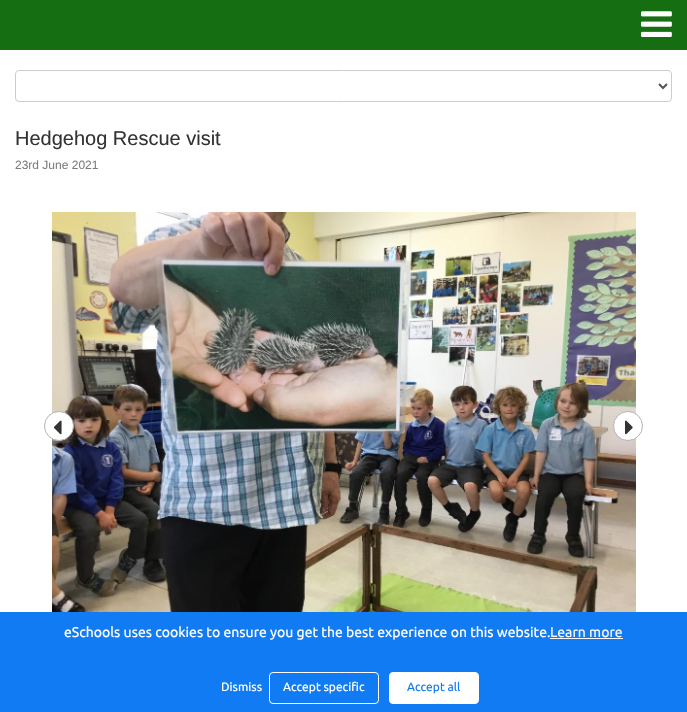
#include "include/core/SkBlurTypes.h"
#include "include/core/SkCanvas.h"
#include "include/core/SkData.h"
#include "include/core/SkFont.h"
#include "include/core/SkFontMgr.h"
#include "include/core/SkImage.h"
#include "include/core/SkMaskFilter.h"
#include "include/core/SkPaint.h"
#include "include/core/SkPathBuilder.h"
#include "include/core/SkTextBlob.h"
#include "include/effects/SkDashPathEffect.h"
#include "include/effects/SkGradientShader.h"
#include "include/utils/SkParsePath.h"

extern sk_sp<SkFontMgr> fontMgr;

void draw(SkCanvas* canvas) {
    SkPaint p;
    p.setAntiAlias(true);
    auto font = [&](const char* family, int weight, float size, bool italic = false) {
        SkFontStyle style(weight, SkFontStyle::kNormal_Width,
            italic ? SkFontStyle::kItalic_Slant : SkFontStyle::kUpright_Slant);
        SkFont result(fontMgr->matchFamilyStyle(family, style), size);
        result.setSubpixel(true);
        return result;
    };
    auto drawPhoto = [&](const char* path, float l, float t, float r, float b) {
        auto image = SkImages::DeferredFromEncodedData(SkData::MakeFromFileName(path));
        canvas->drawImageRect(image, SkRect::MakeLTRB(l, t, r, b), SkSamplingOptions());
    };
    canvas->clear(0xFF156E12);
    drawPhoto("media/1.png", 641, 11, 672, 37);
    p.setColor(0xFFFFFFFF);
    canvas->drawRect(SkRect::MakeLTRB(0, 50, 687, 612), p);
    p.setStyle(SkPaint::kStroke_Style);
    p.setStrokeWidth(1);
    p.setColor(0xFFCCCCCC);
    canvas->drawRoundRect(SkRect::MakeLTRB(15.5f, 70.5f, 671.5f, 101.5f), 3.5f, 3.5f, p);
    p.setStrokeWidth(2);
    p.setColor(0xFF555555);
    canvas->drawPath(SkPathBuilder().moveTo(659, 84).lineTo(663, 88).lineTo(667, 84).detach(), p);
    auto font1 = font("Liberation Sans", 400, 20);
    p.setStyle(SkPaint::kFill_Style);
    p.setColor(0xFF333333);
    canvas->drawString("Hedgehog Rescue visit", 15, 145, font1, p);
    auto font2 = font("Liberation Sans", 400, 12);
    p.setColor(0xFF7D7D7D);
    canvas->drawString("23rd June 2021", 15, 169, font2, p);
    drawPhoto("media/2.png", 52, 212, 636, 612);
    p.setColor(0xFFFFFFFF);
    canvas->drawCircle(59, 426, 14.5f, p);
    p.setStyle(SkPaint::kStroke_Style);
    p.setStrokeWidth(1);
    p.setColor(0xFFB3B3B3);
    canvas->drawCircle(59, 426, 14.5f, p);
    drawPhoto("media/3.png", 53, 420, 62, 435);
    p.setStyle(SkPaint::kFill_Style);
    p.setColor(0xFFFFFFFF);
    canvas->drawCircle(628, 426, 14.5f, p);
    p.setStyle(SkPaint::kStroke_Style);
    p.setColor(0xFFB3B3B3);
    canvas->drawCircle(628, 426, 14.5f, p);
    drawPhoto("media/4.png", 625, 420, 633, 435);
    p.setStyle(SkPaint::kFill_Style);
    p.setColor(0xFF117BF3);
    canvas->drawRect(SkRect::MakeLTRB(0, 612, 687, 712), p);
    auto font3 = font("Ubuntu", 400, 14);
    p.setColor(0xFFFFFFFF);
    canvas->drawString("eSchools uses cookies to ensure you get the best experience on this website.", 64, 637, font3, p);
    p.setColor(0xFFF7F7F7);
    canvas->drawRect(SkRect::MakeLTRB(550, 638, 623, 639), p);
    canvas->drawString("Learn more", 550, 637, font3, p);
    auto font4 = font("Ubuntu", 400, 12);
    p.setColor(0xFFFFFFFF);
    canvas->drawString("Dismiss", 221, 691, font4, p);
    p.setStyle(SkPaint::kStroke_Style);
    canvas->drawRoundRect(SkRect::MakeLTRB(269.5f, 672.5f, 378.5f, 703.5f), 3.5f, 3.5f, p);
    p.setStyle(SkPaint::kFill_Style);
    canvas->drawString("Accept specific", 283, 691, font4, p);
    canvas->drawRoundRect(SkRect::MakeLTRB(389.5f, 672.5f, 478.5f, 703.5f), 3.5f, 3.5f, p);
    p.setStyle(SkPaint::kStroke_Style);
    canvas->drawRoundRect(SkRect::MakeLTRB(389.5f, 672.5f, 478.5f, 703.5f), 3.5f, 3.5f, p);
    p.setStyle(SkPaint::kFill_Style);
    p.setColor(0xFF117BF3);
    canvas->drawString("Accept all", 407, 691, font4, p);
}
